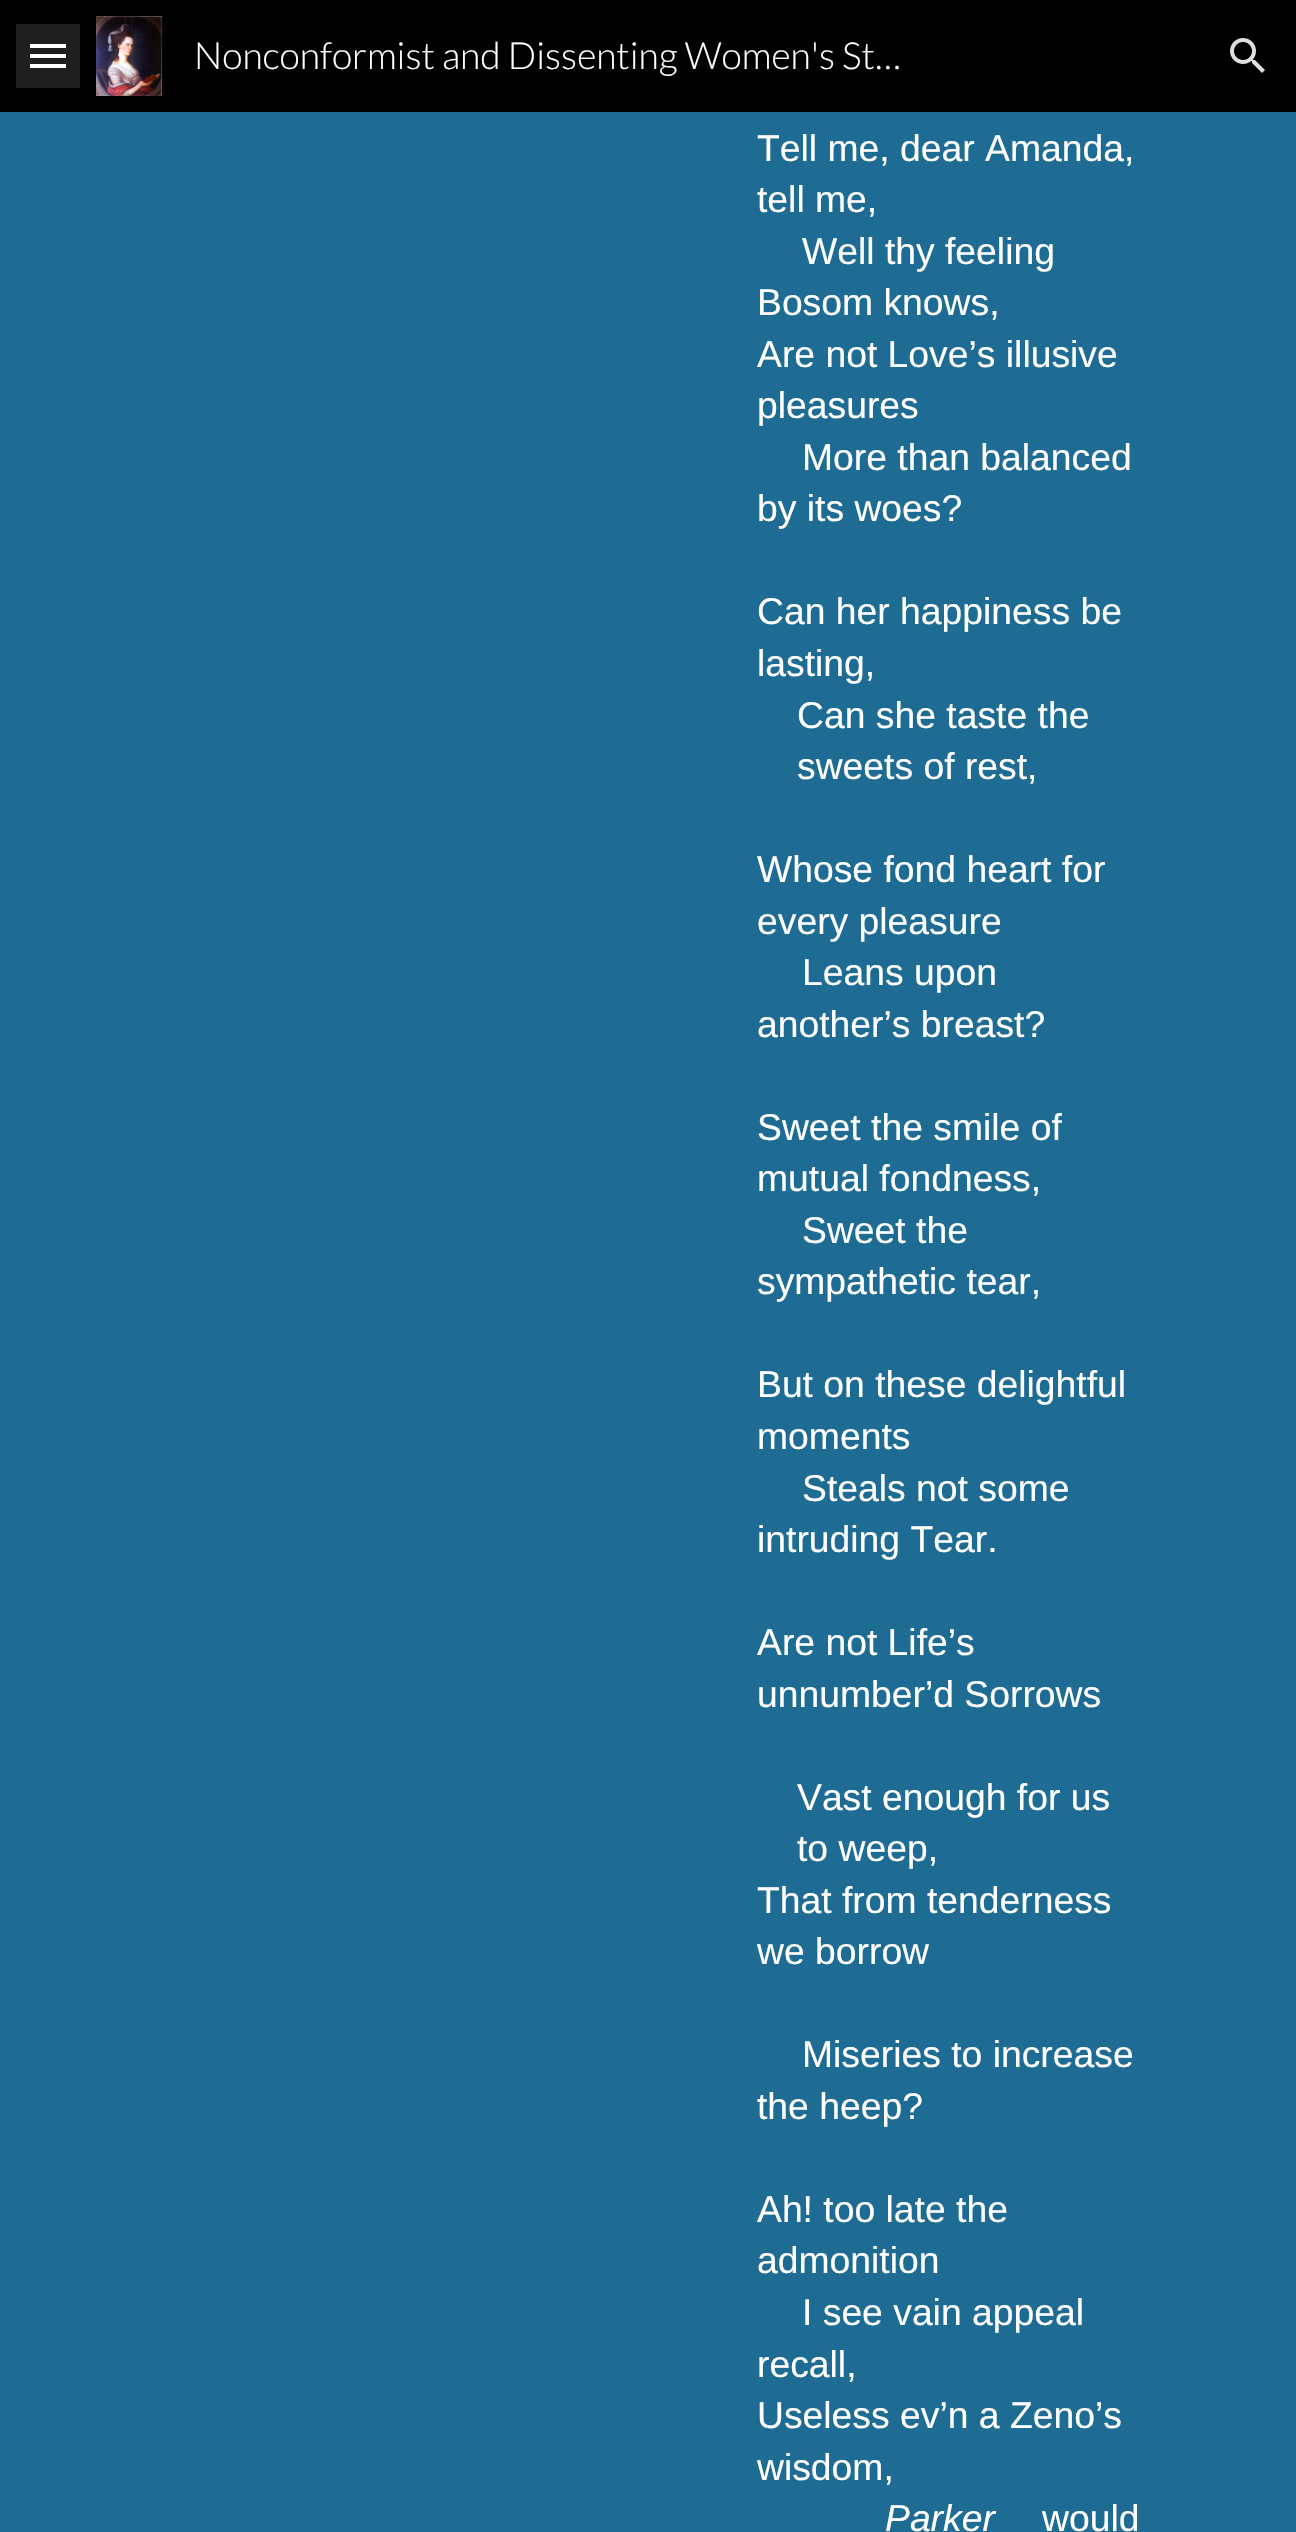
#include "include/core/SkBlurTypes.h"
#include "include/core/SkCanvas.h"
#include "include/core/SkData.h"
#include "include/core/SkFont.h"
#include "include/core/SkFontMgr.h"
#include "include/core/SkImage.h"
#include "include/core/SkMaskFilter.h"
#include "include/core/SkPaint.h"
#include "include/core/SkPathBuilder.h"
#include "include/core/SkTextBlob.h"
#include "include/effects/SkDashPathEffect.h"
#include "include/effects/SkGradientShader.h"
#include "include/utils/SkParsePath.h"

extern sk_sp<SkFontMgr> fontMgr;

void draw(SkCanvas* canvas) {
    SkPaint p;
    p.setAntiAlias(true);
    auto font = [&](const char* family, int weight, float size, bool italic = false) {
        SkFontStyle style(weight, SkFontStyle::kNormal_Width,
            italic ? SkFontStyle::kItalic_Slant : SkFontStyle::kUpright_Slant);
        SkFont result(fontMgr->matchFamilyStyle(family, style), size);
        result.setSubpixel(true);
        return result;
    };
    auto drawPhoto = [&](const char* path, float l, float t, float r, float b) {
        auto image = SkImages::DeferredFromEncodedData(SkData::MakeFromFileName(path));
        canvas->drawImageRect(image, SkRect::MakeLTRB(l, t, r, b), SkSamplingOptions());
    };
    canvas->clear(0xFF1E6C93);
    {
        const struct { float l, t, r, b; SkColor color; } items[] = {
            {0, 0, 1296, 112, 0xFF000000},
            {30, 44, 66, 48, 0xFFFFFFFF},
            {30, 54, 66, 58, 0xFFFFFFFF},
            {30, 64, 66, 68, 0xFFFFFFFF},
            {16, 24, 80, 88, 0x1FFFFFFF},
        };
        for (auto [l, t, r, b, color] : items) {
            p.setColor(color);
            canvas->drawRect(SkRect::MakeLTRB(l, t, r, b), p);
        }
    }
    drawPhoto("media/1.png", 96, 16, 163, 96);
    auto font1 = font("Lato", 300, 37.3f);
    p.setColor(0xFFFFFFFF);
    canvas->drawString("Nonconformist and Dissenting Women's St…", 194, 69, font1, p);
    drawPhoto("media/2.png", 1230, 38, 1265, 73);
    auto font2 = font("Liberation Sans", 400, 37.3f);
    {
        const struct { const char* s; float x, y; } items[] = {
            {"Tell me, dear Amanda,", 757, 161},
            {"tell me,", 757, 212},
            {"Well thy feeling", 802, 264},
            {"Bosom knows,", 757, 315},
            {"Are not Love’s illusive", 757, 367},
            {"pleasures", 757, 418},
            {"More than balanced", 802, 470},
            {"by its woes?", 757, 521},
            {"Can her happiness be", 757, 624},
            {"lasting,", 757, 676},
            {"Can she taste the", 797, 728},
            {"sweets of rest,", 797, 779},
            {"Whose fond heart for", 757, 882},
            {"every pleasure", 757, 934},
            {"Leans upon", 802, 985},
            {"another’s breast?", 757, 1037},
            {"Sweet the smile of", 757, 1140},
            {"mutual fondness,", 757, 1191},
            {"Sweet the", 802, 1243},
            {"sympathetic tear,", 757, 1294},
            {"But on these delightful", 757, 1397},
            {"moments", 757, 1449},
            {"Steals not some", 802, 1501},
            {"intruding Tear.", 757, 1552},
            {"Are not Life’s", 757, 1655},
            {"unnumber’d Sorrows", 757, 1707},
            {"Vast enough for us", 797, 1810},
            {"to weep,", 797, 1861},
            {"That from tenderness", 757, 1913},
            {"we borrow", 757, 1964},
            {"Miseries to increase", 802, 2067},
            {"the heep?", 757, 2119},
            {"Ah! too late the", 757, 2222},
            {"admonition", 757, 2273},
            {"I see vain appeal", 802, 2325},
            {"recall,", 757, 2377},
            {"Useless ev’n a Zeno’s", 757, 2428},
            {"wisdom,", 757, 2480},
        };
        for (auto [s, x, y] : items) {
            canvas->drawString(s, x, y, font2, p);
        }
    }
    auto font3 = font("Liberation Sans", 400, 37.3f, true);
    canvas->drawString("Parker", 885, 2531, font3, p);
    canvas->drawString("would", 1042, 2531, font2, p);
}
